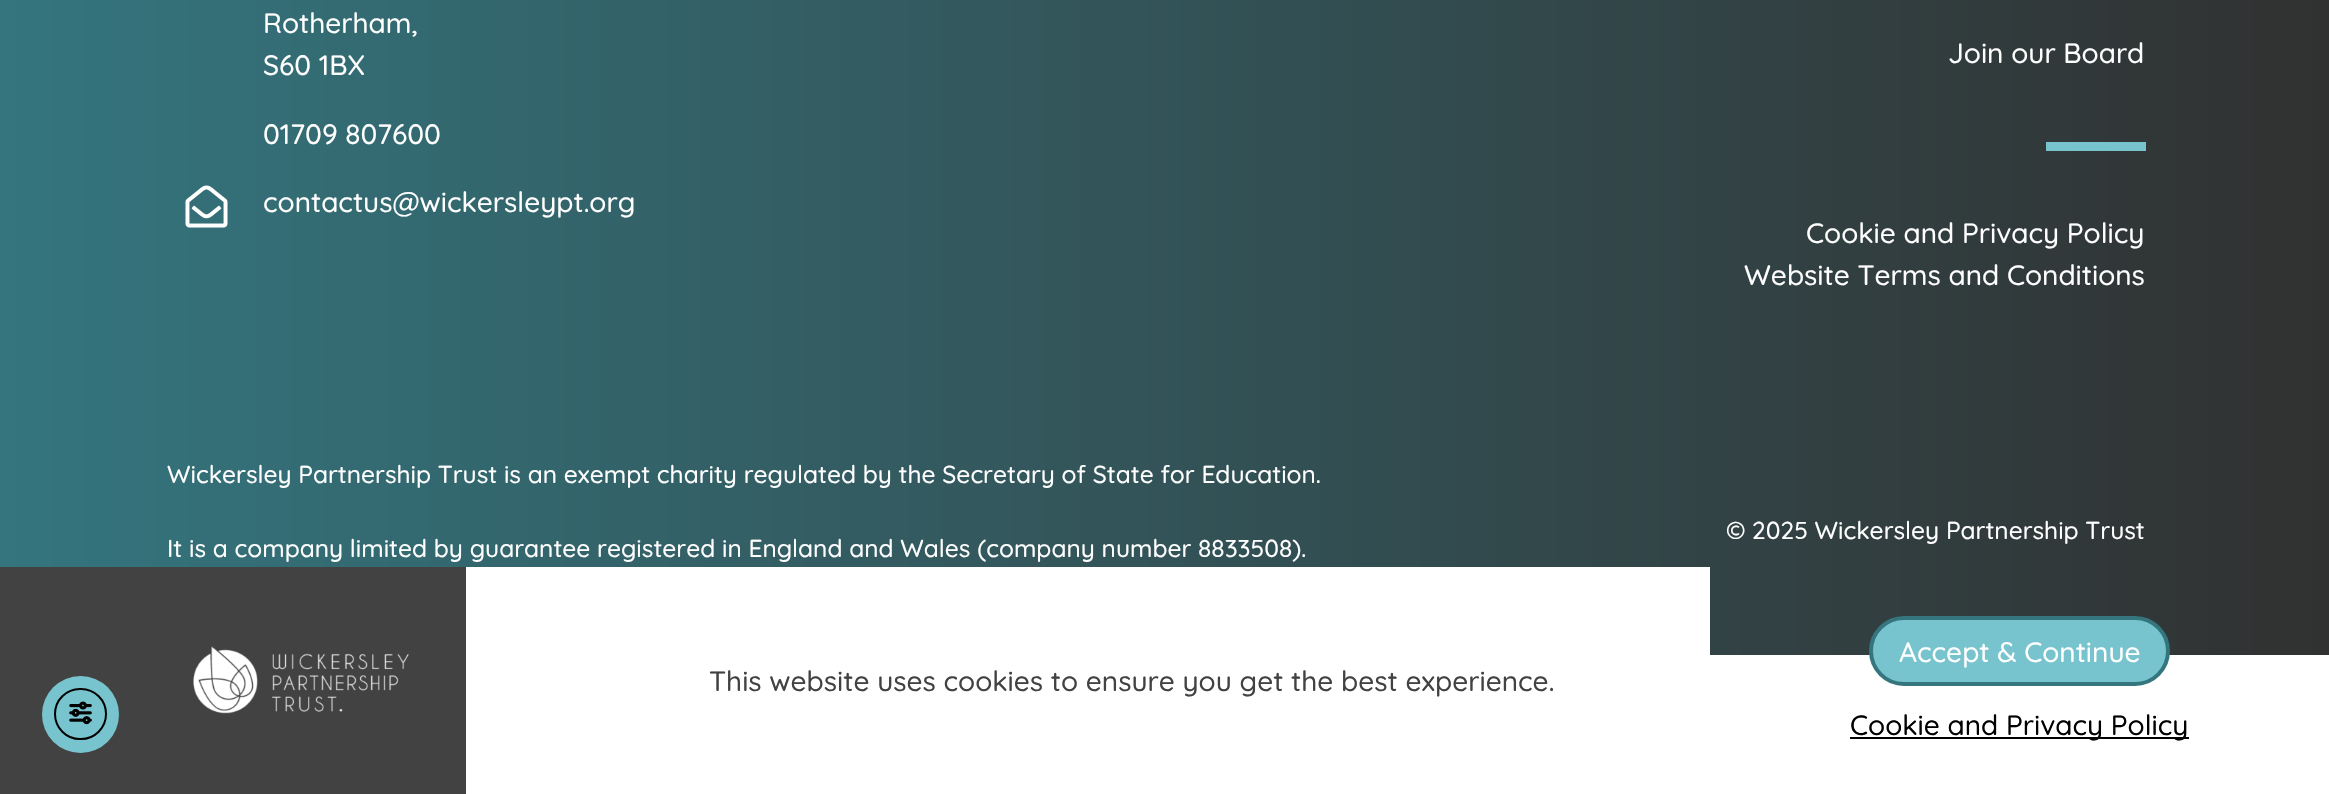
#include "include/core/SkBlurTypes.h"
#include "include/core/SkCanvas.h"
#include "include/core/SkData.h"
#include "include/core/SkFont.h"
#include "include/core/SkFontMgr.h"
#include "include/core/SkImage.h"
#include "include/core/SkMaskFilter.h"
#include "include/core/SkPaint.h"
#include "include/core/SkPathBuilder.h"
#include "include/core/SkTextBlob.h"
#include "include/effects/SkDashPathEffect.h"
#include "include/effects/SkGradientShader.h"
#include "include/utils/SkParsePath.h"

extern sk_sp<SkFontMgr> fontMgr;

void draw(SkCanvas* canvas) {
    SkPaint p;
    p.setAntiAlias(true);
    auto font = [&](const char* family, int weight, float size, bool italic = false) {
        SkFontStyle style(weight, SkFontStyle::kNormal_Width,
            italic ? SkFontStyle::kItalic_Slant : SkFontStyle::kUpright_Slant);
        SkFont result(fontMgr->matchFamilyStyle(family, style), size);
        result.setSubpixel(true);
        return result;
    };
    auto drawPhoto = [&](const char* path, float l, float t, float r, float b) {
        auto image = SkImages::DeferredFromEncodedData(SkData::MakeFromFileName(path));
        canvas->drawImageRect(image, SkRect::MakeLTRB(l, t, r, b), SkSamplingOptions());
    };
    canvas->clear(0xFFFFFFFF);
    {
        const SkColor colors[] = {0xFF34757E, 0xFF313131};
        const float stops[] = {0, 1};
        const SkPoint ends[] = {{0, 110}, {2329, 110}};
        p.setShader(SkGradientShader::MakeLinear(ends, colors, stops, 2, SkTileMode::kClamp));
        p.setAlpha(255);
    }
    canvas->drawRect(SkRect::MakeLTRB(0, 0, 2329, 655), p);
    auto font1 = font("Quicksand", 500, 28);
    p.setShader(nullptr);
    p.setColor(0xFFFFFFFF);
    {
        const struct { const char* s; float x, y; } items[] = {
            {"Rotherham,", 263, 33},
            {"S60 1BX", 263, 75},
            {"01709 807600", 263, 144},
        };
        for (auto [s, x, y] : items) {
            canvas->drawString(s, x, y, font1, p);
        }
    }
    drawPhoto("media/1.png", 185, 185, 228, 228);
    canvas->drawString("contactus@wickersleypt.org", 263, 212, font1, p);
    canvas->drawString("Join our Board", 1948, 63, font1, p);
    p.setColor(0xFF78C4CE);
    canvas->drawRect(SkRect::MakeLTRB(2046, 142, 2146, 151), p);
    p.setColor(0xFFFFFFFF);
    canvas->drawString("Cookie and Privacy Policy", 1806, 243, font1, p);
    canvas->drawString("Website Terms and Conditions", 1744, 285, font1, p);
    auto font2 = font("Quicksand", 500, 24.5f);
    {
        const struct { const char* s; float x, y; } items[] = {
            {"Wickersley Partnership Trust is an exempt charity regulated by the Secretary of State for Education.", 167, 483},
            {"It is a company limited by guarantee registered in England and Wales (company number 8833508).", 167, 557},
            {"© 2025 Wickersley Partnership Trust", 1726, 539},
        };
        for (auto [s, x, y] : items) {
            canvas->drawString(s, x, y, font2, p);
        }
    }
    p.setColor(0xFF424242);
    canvas->drawRect(SkRect::MakeLTRB(0, 567, 466, 794), p);
    p.setColor(0xFF78C4CE);
    canvas->drawCircle(80.5f, 714.5f, 38.5f, p);
    p.setStyle(SkPaint::kStroke_Style);
    p.setStrokeWidth(2);
    p.setColor(0xFF000000);
    canvas->drawRoundRect(SkRect::MakeLTRB(55, 689, 106, 739), 25, 25, p);
    drawPhoto("media/2.png", 69, 701, 92, 725);
    drawPhoto("media/3.png", 193, 646, 409, 714);
    p.setStyle(SkPaint::kFill_Style);
    p.setColor(0xFFFFFFFF);
    canvas->drawRect(SkRect::MakeLTRB(466, 567, 1710, 655), p);
    p.setColor(0xFF424242);
    canvas->drawString("This website uses cookies to ensure you get the best experience.", 709, 691, font1, p);
    p.setColor(0xFF78C4CE);
    canvas->drawRoundRect(SkRect::MakeLTRB(1871, 618, 2168, 684), 33, 33, p);
    p.setStyle(SkPaint::kStroke_Style);
    p.setStrokeWidth(4);
    p.setColor(0xFF34757E);
    canvas->drawRoundRect(SkRect::MakeLTRB(1871, 618, 2168, 684), 33, 33, p);
    p.setStyle(SkPaint::kFill_Style);
    p.setColor(0xFFFFFFFF);
    canvas->drawString("Accept & Continue", 1899, 662, font1, p);
    p.setColor(0xFF000000);
    canvas->drawRect(SkRect::MakeLTRB(1850, 737, 2189, 739), p);
    canvas->drawString("Cookie and Privacy Policy", 1850, 735, font1, p);
}
